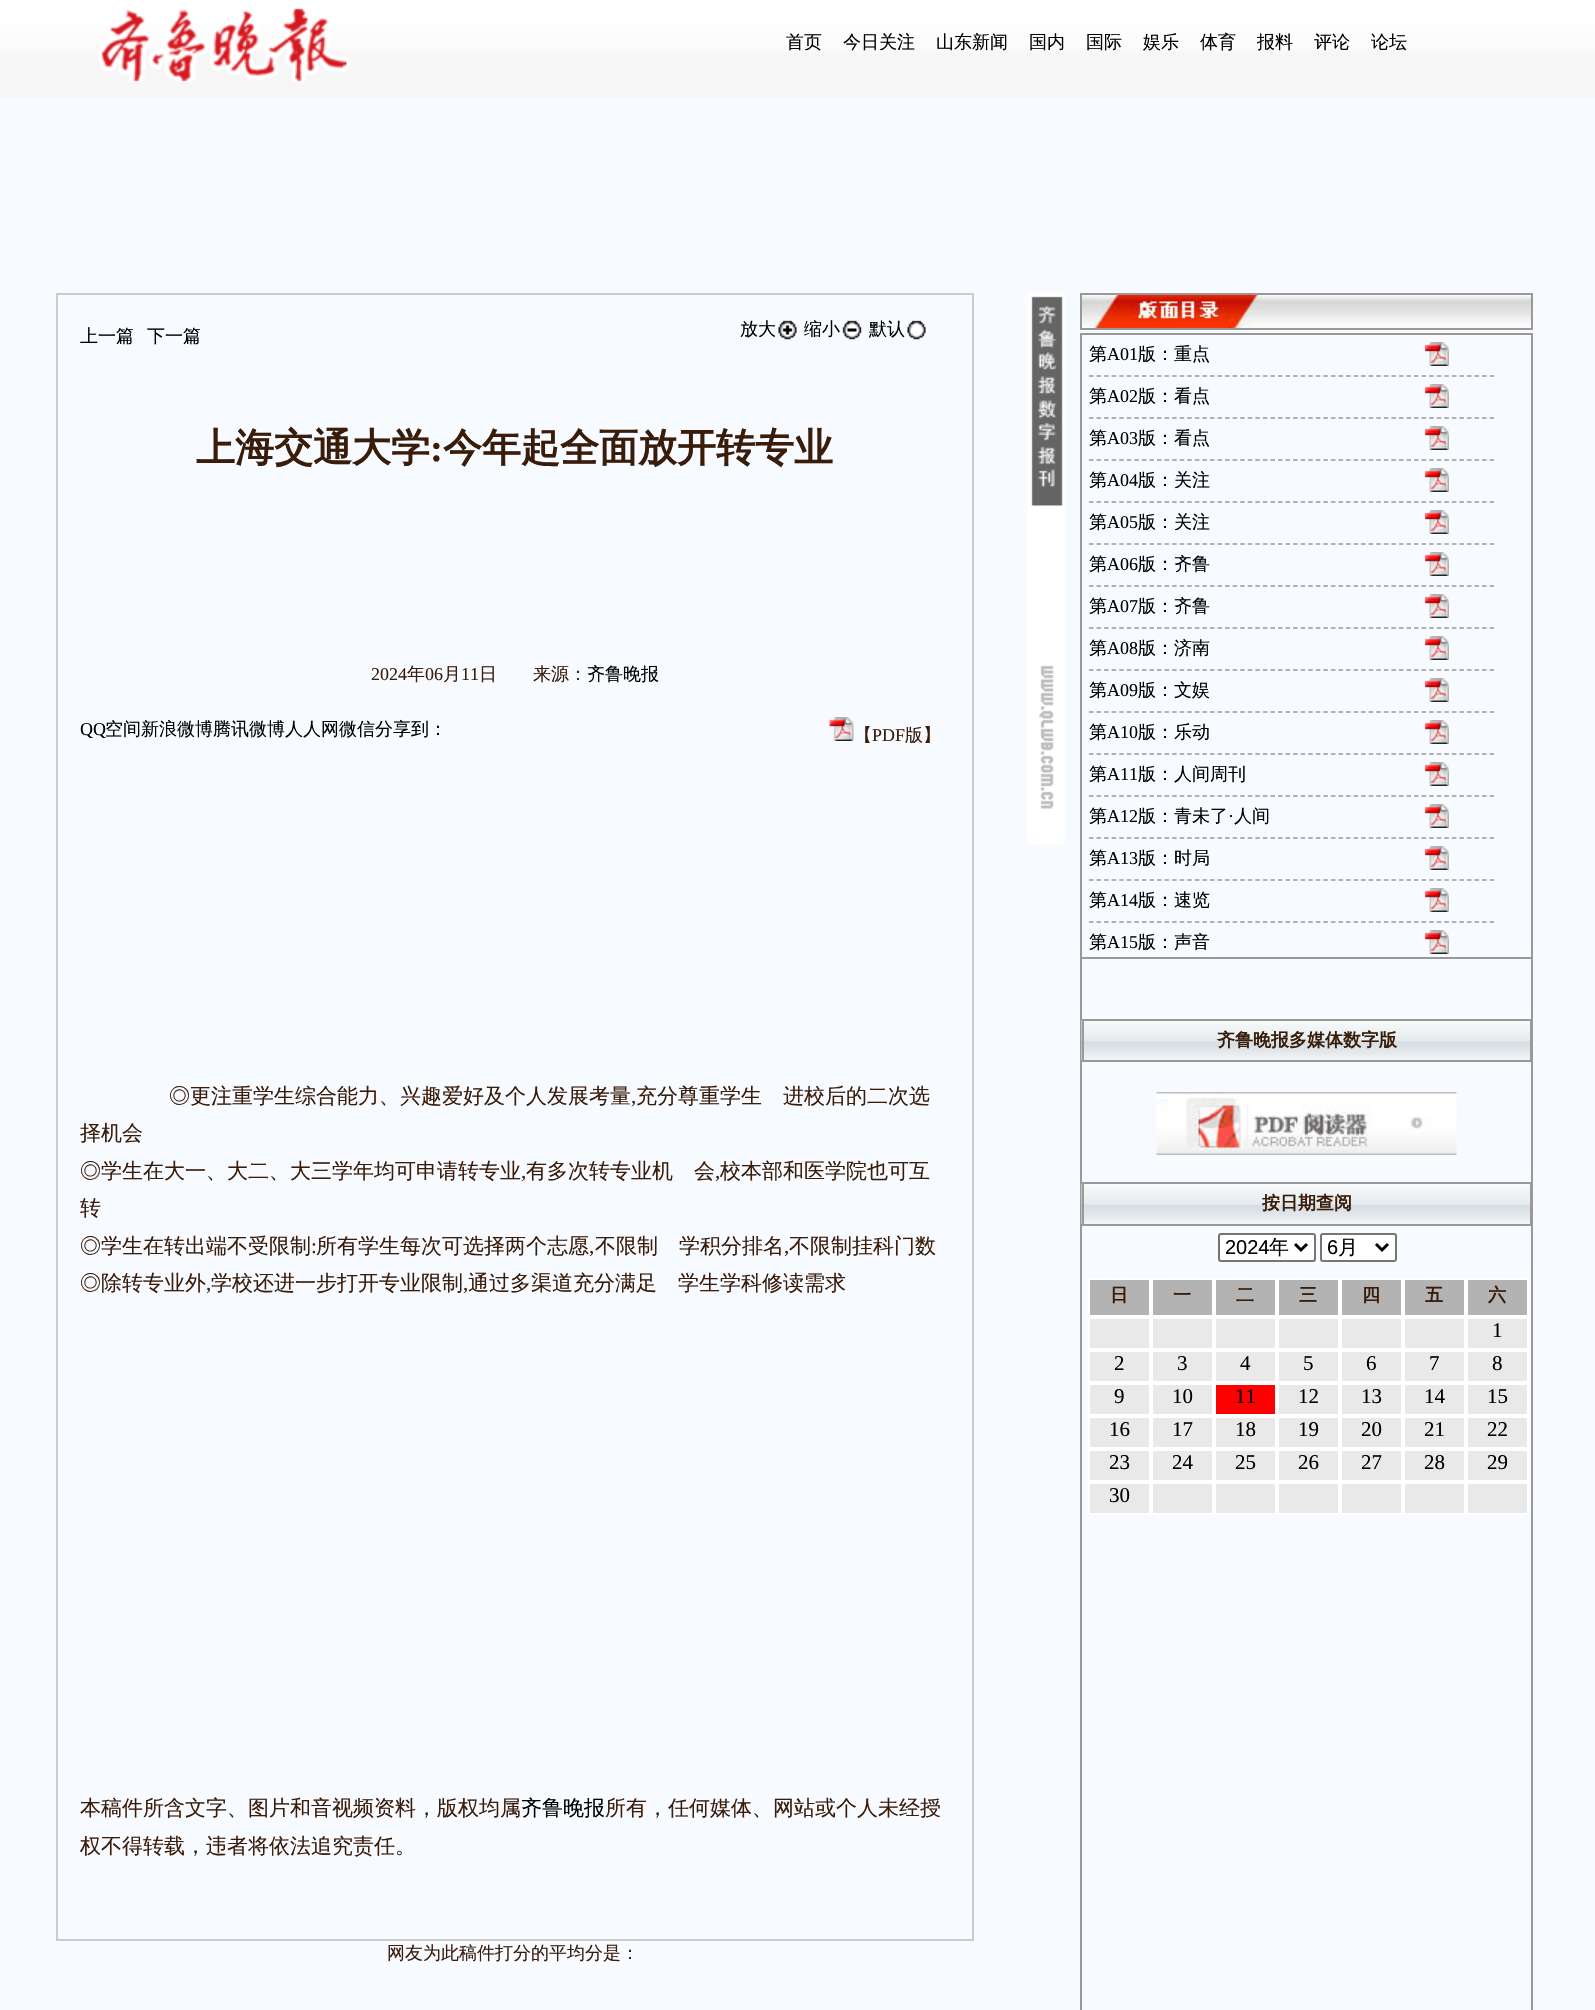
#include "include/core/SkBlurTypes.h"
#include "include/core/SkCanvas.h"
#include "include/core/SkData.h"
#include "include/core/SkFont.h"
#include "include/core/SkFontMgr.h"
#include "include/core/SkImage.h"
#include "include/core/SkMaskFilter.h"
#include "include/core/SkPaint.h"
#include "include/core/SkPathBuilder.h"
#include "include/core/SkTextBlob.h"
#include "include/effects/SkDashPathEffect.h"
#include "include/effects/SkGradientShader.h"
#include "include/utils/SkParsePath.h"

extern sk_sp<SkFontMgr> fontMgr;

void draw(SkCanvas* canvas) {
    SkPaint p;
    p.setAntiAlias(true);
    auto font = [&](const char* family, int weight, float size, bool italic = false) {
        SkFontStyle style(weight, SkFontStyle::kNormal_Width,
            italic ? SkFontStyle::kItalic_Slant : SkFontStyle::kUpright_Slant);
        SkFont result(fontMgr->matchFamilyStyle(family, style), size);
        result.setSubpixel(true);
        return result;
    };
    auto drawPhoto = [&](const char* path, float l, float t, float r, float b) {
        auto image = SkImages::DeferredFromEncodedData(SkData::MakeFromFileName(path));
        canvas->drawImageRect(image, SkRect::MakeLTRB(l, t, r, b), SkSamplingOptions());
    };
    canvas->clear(0xFFF7FAFF);
    drawPhoto("media/1.png", 0, 0, 1595, 98);
    drawPhoto("media/2.png", 98, 8, 351, 83);
    auto font1 = font("WenQuanYi Zen Hei", 500, 18);
    p.setColor(0xFF000000);
    {
        const struct { const char* s; float x, y; } items[] = {
            {"首页", 786, 48},
            {"今日关注", 843, 48},
            {"山东新闻", 936, 48},
            {"国内", 1029, 48},
            {"国际", 1086, 48},
            {"娱乐", 1143, 48},
            {"体育", 1200, 48},
            {"报料", 1257, 48},
            {"评论", 1314, 48},
            {"论坛", 1371, 48},
        };
        for (auto [s, x, y] : items) {
            canvas->drawString(s, x, y, font1, p);
        }
    }
    p.setStyle(SkPaint::kStroke_Style);
    p.setStrokeWidth(2);
    p.setColor(0xFFCCCCCC);
    canvas->drawRect(SkRect::MakeLTRB(57, 294, 973, 1940), p);
    p.setStyle(SkPaint::kFill_Style);
    p.setColor(0xFF000000);
    {
        const struct { const char* s; float x, y; } items[] = {
            {"上一篇", 80, 342},
            {"下一篇", 147, 342},
            {"放大", 740, 335},
        };
        for (auto [s, x, y] : items) {
            canvas->drawString(s, x, y, font1, p);
        }
    }
    drawPhoto("media/3.png", 778, 320, 797, 340);
    canvas->drawString("缩小", 804, 335, font1, p);
    drawPhoto("media/4.png", 842, 320, 862, 340);
    canvas->drawString("默认", 869, 335, font1, p);
    drawPhoto("media/5.png", 907, 320, 926, 340);
    auto font2 = font("WenQuanYi Zen Hei", 700, 39);
    p.setColor(0xFF391C09);
    canvas->drawString("上海交通大学", 196, 461, font2, p);
    auto font3 = font("Liberation Serif", 700, 39);
    canvas->drawString(":", 430, 461, font3, p);
    canvas->drawString("今年起全面放开转专业", 443, 461, font2, p);
    auto font4 = font("Liberation Serif", 400, 18);
    canvas->drawString("2024", 371, 680, font4, p);
    canvas->drawString("年", 407, 680, font1, p);
    canvas->drawString("06", 425, 680, font4, p);
    canvas->drawString("月", 443, 680, font1, p);
    canvas->drawString("11", 461, 680, font4, p);
    canvas->drawString("日　　来源：", 479, 680, font1, p);
    p.setColor(0xFF000000);
    canvas->drawString("齐鲁晚报", 587, 680, font1, p);
    canvas->drawString("QQ", 80, 735, font4, p);
    canvas->drawString("空间新浪微博腾讯微博人人网微信分享到：", 105, 735, font1, p);
    drawPhoto("media/6.png", 829, 717, 854, 741);
    p.setColor(0xFF391C09);
    canvas->drawString("【", 854, 741, font1, p);
    canvas->drawString("PDF", 872, 741, font4, p);
    canvas->drawString("版】", 905, 741, font1, p);
    auto font5 = font("WenQuanYi Zen Hei", 500, 21);
    canvas->drawString("◎更注重学生综合能力、兴趣爱好及个人发展考量", 169, 1103, font5, p);
    auto font6 = font("Liberation Serif", 400, 21);
    canvas->drawString(",", 631, 1103, font6, p);
    {
        const struct { const char* s; float x, y; } items[] = {
            {"充分尊重学生　进校后的二次选", 636, 1103},
            {"择机会", 80, 1140},
            {"◎学生在大一、大二、大三学年均可申请转专业", 80, 1178},
        };
        for (auto [s, x, y] : items) {
            canvas->drawString(s, x, y, font5, p);
        }
    }
    canvas->drawString(",", 521, 1178, font6, p);
    canvas->drawString("有多次转专业机　会", 526, 1178, font5, p);
    canvas->drawString(",", 715, 1178, font6, p);
    {
        const struct { const char* s; float x, y; } items[] = {
            {"校本部和医学院也可互", 720, 1178},
            {"转", 80, 1215},
            {"◎学生在转出端不受限制", 80, 1253},
        };
        for (auto [s, x, y] : items) {
            canvas->drawString(s, x, y, font5, p);
        }
    }
    canvas->drawString(":", 311, 1253, font6, p);
    canvas->drawString("所有学生每次可选择两个志愿", 316, 1253, font5, p);
    canvas->drawString(",", 589, 1253, font6, p);
    canvas->drawString("不限制　学积分排名", 595, 1253, font5, p);
    canvas->drawString(",", 784, 1253, font6, p);
    canvas->drawString("不限制挂科门数", 789, 1253, font5, p);
    canvas->drawString("◎除转专业外", 80, 1290, font5, p);
    canvas->drawString(",", 206, 1290, font6, p);
    canvas->drawString("学校还进一步打开专业限制", 211, 1290, font5, p);
    canvas->drawString(",", 463, 1290, font6, p);
    canvas->drawString("通过多渠道充分满足　学生学科修读需求", 468, 1290, font5, p);
    canvas->drawString("本稿件所含文字、图片和音视频资料，版权均属", 80, 1815, font5, p);
    p.setColor(0xFF000000);
    canvas->drawString("齐鲁晚报", 521, 1815, font5, p);
    p.setColor(0xFF391C09);
    canvas->drawString("所有，任何媒体、网站或个人未经授", 605, 1815, font5, p);
    canvas->drawString("权不得转载，违者将依法追究责任。", 80, 1853, font5, p);
    canvas->drawString("网友为此稿件打分的平均分是：", 387, 1959, font1, p);
    drawPhoto("media/7.png", 1027, 292, 1065, 845);
    drawPhoto("media/8.png", 1082, 295, 1531, 328);
    p.setStyle(SkPaint::kStroke_Style);
    p.setColor(0xFF999999);
    canvas->drawRect(SkRect::MakeLTRB(1081, 294, 1532, 329), p);
    canvas->drawRect(SkRect::MakeLTRB(1081, 334, 1532, 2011), p);
    p.setStyle(SkPaint::kFill_Style);
    canvas->drawRect(SkRect::MakeLTRB(1082, 957, 1532, 959), p);
    p.setStyle(SkPaint::kStroke_Style);
    p.setStrokeWidth(1.5f);
    p.setPathEffect(SkDashPathEffect::Make({{4.5f, 3.06f}}, 0));
    canvas->drawPath(SkPathBuilder().moveTo(1089, 376).lineTo(1494, 376).detach(), p);
    p.setPathEffect(nullptr);
    p.setStyle(SkPaint::kFill_Style);
    p.setColor(0xFF000000);
    canvas->drawString("第", 1089, 360, font1, p);
    canvas->drawString("A01", 1107, 360, font4, p);
    canvas->drawString("版：重点", 1138, 360, font1, p);
    drawPhoto("media/9.png", 1425, 342, 1449, 366);
    p.setStyle(SkPaint::kStroke_Style);
    p.setColor(0xFF999999);
    p.setPathEffect(SkDashPathEffect::Make({{4.5f, 3.06f}}, 0));
    canvas->drawPath(SkPathBuilder().moveTo(1089, 418).lineTo(1494, 418).detach(), p);
    p.setPathEffect(nullptr);
    p.setStyle(SkPaint::kFill_Style);
    p.setColor(0xFF000000);
    canvas->drawString("第", 1089, 402, font1, p);
    canvas->drawString("A02", 1107, 402, font4, p);
    canvas->drawString("版：看点", 1138, 402, font1, p);
    drawPhoto("media/9.png", 1425, 384, 1449, 408);
    p.setStyle(SkPaint::kStroke_Style);
    p.setColor(0xFF999999);
    p.setPathEffect(SkDashPathEffect::Make({{4.5f, 3.06f}}, 0));
    canvas->drawPath(SkPathBuilder().moveTo(1089, 460).lineTo(1494, 460).detach(), p);
    p.setPathEffect(nullptr);
    p.setStyle(SkPaint::kFill_Style);
    p.setColor(0xFF000000);
    canvas->drawString("第", 1089, 444, font1, p);
    canvas->drawString("A03", 1107, 444, font4, p);
    canvas->drawString("版：看点", 1138, 444, font1, p);
    drawPhoto("media/9.png", 1425, 426, 1449, 450);
    p.setStyle(SkPaint::kStroke_Style);
    p.setColor(0xFF999999);
    p.setPathEffect(SkDashPathEffect::Make({{4.5f, 3.06f}}, 0));
    canvas->drawPath(SkPathBuilder().moveTo(1089, 502).lineTo(1494, 502).detach(), p);
    p.setPathEffect(nullptr);
    p.setStyle(SkPaint::kFill_Style);
    p.setColor(0xFF000000);
    canvas->drawString("第", 1089, 486, font1, p);
    canvas->drawString("A04", 1107, 486, font4, p);
    canvas->drawString("版：关注", 1138, 486, font1, p);
    drawPhoto("media/9.png", 1425, 468, 1449, 492);
    p.setStyle(SkPaint::kStroke_Style);
    p.setColor(0xFF999999);
    p.setPathEffect(SkDashPathEffect::Make({{4.5f, 3.06f}}, 0));
    canvas->drawPath(SkPathBuilder().moveTo(1089, 544).lineTo(1494, 544).detach(), p);
    p.setPathEffect(nullptr);
    p.setStyle(SkPaint::kFill_Style);
    p.setColor(0xFF000000);
    canvas->drawString("第", 1089, 528, font1, p);
    canvas->drawString("A05", 1107, 528, font4, p);
    canvas->drawString("版：关注", 1138, 528, font1, p);
    drawPhoto("media/9.png", 1425, 510, 1449, 534);
    p.setStyle(SkPaint::kStroke_Style);
    p.setColor(0xFF999999);
    p.setPathEffect(SkDashPathEffect::Make({{4.5f, 3.06f}}, 0));
    canvas->drawPath(SkPathBuilder().moveTo(1089, 586).lineTo(1494, 586).detach(), p);
    p.setPathEffect(nullptr);
    p.setStyle(SkPaint::kFill_Style);
    p.setColor(0xFF000000);
    canvas->drawString("第", 1089, 570, font1, p);
    canvas->drawString("A06", 1107, 570, font4, p);
    canvas->drawString("版：齐鲁", 1138, 570, font1, p);
    drawPhoto("media/9.png", 1425, 552, 1449, 576);
    p.setStyle(SkPaint::kStroke_Style);
    p.setColor(0xFF999999);
    p.setPathEffect(SkDashPathEffect::Make({{4.5f, 3.06f}}, 0));
    canvas->drawPath(SkPathBuilder().moveTo(1089, 628).lineTo(1494, 628).detach(), p);
    p.setPathEffect(nullptr);
    p.setStyle(SkPaint::kFill_Style);
    p.setColor(0xFF000000);
    canvas->drawString("第", 1089, 612, font1, p);
    canvas->drawString("A07", 1107, 612, font4, p);
    canvas->drawString("版：齐鲁", 1138, 612, font1, p);
    drawPhoto("media/9.png", 1425, 594, 1449, 618);
    p.setStyle(SkPaint::kStroke_Style);
    p.setColor(0xFF999999);
    p.setPathEffect(SkDashPathEffect::Make({{4.5f, 3.06f}}, 0));
    canvas->drawPath(SkPathBuilder().moveTo(1089, 670).lineTo(1494, 670).detach(), p);
    p.setPathEffect(nullptr);
    p.setStyle(SkPaint::kFill_Style);
    p.setColor(0xFF000000);
    canvas->drawString("第", 1089, 654, font1, p);
    canvas->drawString("A08", 1107, 654, font4, p);
    canvas->drawString("版：济南", 1138, 654, font1, p);
    drawPhoto("media/9.png", 1425, 636, 1449, 660);
    p.setStyle(SkPaint::kStroke_Style);
    p.setColor(0xFF999999);
    p.setPathEffect(SkDashPathEffect::Make({{4.5f, 3.06f}}, 0));
    canvas->drawPath(SkPathBuilder().moveTo(1089, 712).lineTo(1494, 712).detach(), p);
    p.setPathEffect(nullptr);
    p.setStyle(SkPaint::kFill_Style);
    p.setColor(0xFF000000);
    canvas->drawString("第", 1089, 696, font1, p);
    canvas->drawString("A09", 1107, 696, font4, p);
    canvas->drawString("版：文娱", 1138, 696, font1, p);
    drawPhoto("media/9.png", 1425, 678, 1449, 702);
    p.setStyle(SkPaint::kStroke_Style);
    p.setColor(0xFF999999);
    p.setPathEffect(SkDashPathEffect::Make({{4.5f, 3.06f}}, 0));
    canvas->drawPath(SkPathBuilder().moveTo(1089, 754).lineTo(1494, 754).detach(), p);
    p.setPathEffect(nullptr);
    p.setStyle(SkPaint::kFill_Style);
    p.setColor(0xFF000000);
    canvas->drawString("第", 1089, 738, font1, p);
    canvas->drawString("A10", 1107, 738, font4, p);
    canvas->drawString("版：乐动", 1138, 738, font1, p);
    drawPhoto("media/9.png", 1425, 720, 1449, 744);
    p.setStyle(SkPaint::kStroke_Style);
    p.setColor(0xFF999999);
    p.setPathEffect(SkDashPathEffect::Make({{4.5f, 3.06f}}, 0));
    canvas->drawPath(SkPathBuilder().moveTo(1089, 796).lineTo(1494, 796).detach(), p);
    p.setPathEffect(nullptr);
    p.setStyle(SkPaint::kFill_Style);
    p.setColor(0xFF000000);
    canvas->drawString("第", 1089, 780, font1, p);
    canvas->drawString("A11", 1107, 780, font4, p);
    canvas->drawString("版：人间周刊", 1138, 780, font1, p);
    drawPhoto("media/9.png", 1425, 762, 1449, 786);
    p.setStyle(SkPaint::kStroke_Style);
    p.setColor(0xFF999999);
    p.setPathEffect(SkDashPathEffect::Make({{4.5f, 3.06f}}, 0));
    canvas->drawPath(SkPathBuilder().moveTo(1089, 838).lineTo(1494, 838).detach(), p);
    p.setPathEffect(nullptr);
    p.setStyle(SkPaint::kFill_Style);
    p.setColor(0xFF000000);
    canvas->drawString("第", 1089, 822, font1, p);
    canvas->drawString("A12", 1107, 822, font4, p);
    canvas->drawString("版：青未了", 1138, 822, font1, p);
    canvas->drawString("·", 1228, 822, font4, p);
    canvas->drawString("人间", 1234, 822, font1, p);
    drawPhoto("media/9.png", 1425, 804, 1449, 828);
    p.setStyle(SkPaint::kStroke_Style);
    p.setColor(0xFF999999);
    p.setPathEffect(SkDashPathEffect::Make({{4.5f, 3.06f}}, 0));
    canvas->drawPath(SkPathBuilder().moveTo(1089, 880).lineTo(1494, 880).detach(), p);
    p.setPathEffect(nullptr);
    p.setStyle(SkPaint::kFill_Style);
    p.setColor(0xFF000000);
    canvas->drawString("第", 1089, 864, font1, p);
    canvas->drawString("A13", 1107, 864, font4, p);
    canvas->drawString("版：时局", 1138, 864, font1, p);
    drawPhoto("media/9.png", 1425, 846, 1449, 870);
    p.setStyle(SkPaint::kStroke_Style);
    p.setColor(0xFF999999);
    p.setPathEffect(SkDashPathEffect::Make({{4.5f, 3.06f}}, 0));
    canvas->drawPath(SkPathBuilder().moveTo(1089, 922).lineTo(1494, 922).detach(), p);
    p.setPathEffect(nullptr);
    p.setStyle(SkPaint::kFill_Style);
    p.setColor(0xFF000000);
    canvas->drawString("第", 1089, 906, font1, p);
    canvas->drawString("A14", 1107, 906, font4, p);
    canvas->drawString("版：速览", 1138, 906, font1, p);
    drawPhoto("media/9.png", 1425, 888, 1449, 912);
    canvas->drawString("第", 1089, 948, font1, p);
    canvas->drawString("A15", 1107, 948, font4, p);
    canvas->drawString("版：声音", 1138, 948, font1, p);
    drawPhoto("media/9.png", 1425, 930, 1449, 954);
    drawPhoto("media/10.png", 1081, 1020, 1530, 1061);
    p.setStyle(SkPaint::kStroke_Style);
    p.setStrokeWidth(2);
    p.setColor(0xFF999999);
    canvas->drawRect(SkRect::MakeLTRB(1083, 1020, 1531, 1061), p);
    auto font7 = font("WenQuanYi Zen Hei", 700, 18);
    p.setStyle(SkPaint::kFill_Style);
    p.setColor(0xFF391C09);
    canvas->drawString("齐鲁晚报多媒体数字版", 1217, 1046, font7, p);
    drawPhoto("media/11.png", 1156, 1092, 1457, 1155);
    drawPhoto("media/12.png", 1081, 1183, 1530, 1224);
    p.setStyle(SkPaint::kStroke_Style);
    p.setColor(0xFF999999);
    canvas->drawRect(SkRect::MakeLTRB(1083, 1183, 1531, 1225), p);
    p.setStyle(SkPaint::kFill_Style);
    p.setColor(0xFF391C09);
    canvas->drawString("按日期查阅", 1262, 1209, font7, p);
    p.setColor(0xFFFFFFFF);
    canvas->drawRoundRect(SkRect::MakeLTRB(1219, 1234, 1315, 1261), 2, 2, p);
    p.setStyle(SkPaint::kStroke_Style);
    p.setColor(0xFF767676);
    canvas->drawRoundRect(SkRect::MakeLTRB(1219, 1234, 1315, 1261), 2, 2, p);
    p.setStrokeWidth(3);
    p.setColor(0xFF000000);
    canvas->drawPath(SkPathBuilder().moveTo(1295, 1244).lineTo(1301, 1250).lineTo(1307, 1244).detach(), p);
    auto font8 = font("Liberation Sans", 400, 20);
    p.setStyle(SkPaint::kFill_Style);
    canvas->drawString("2024", 1225, 1254, font8, p);
    auto font9 = font("WenQuanYi Zen Hei", 500, 20);
    canvas->drawString("年", 1269, 1254, font9, p);
    p.setColor(0xFFFFFFFF);
    canvas->drawRoundRect(SkRect::MakeLTRB(1321, 1234, 1396, 1261), 2, 2, p);
    p.setStyle(SkPaint::kStroke_Style);
    p.setStrokeWidth(2);
    p.setColor(0xFF767676);
    canvas->drawRoundRect(SkRect::MakeLTRB(1321, 1234, 1396, 1261), 2, 2, p);
    p.setStrokeWidth(3);
    p.setColor(0xFF000000);
    canvas->drawPath(SkPathBuilder().moveTo(1376, 1244).lineTo(1382, 1250).lineTo(1388, 1244).detach(), p);
    canvas->save();
    canvas->clipRect(SkRect::MakeLTRB(1328, 1235, 1371, 1260));
    p.setStyle(SkPaint::kFill_Style);
    canvas->drawString("6", 1327, 1254, font8, p);
    canvas->restore();
    canvas->drawString("月", 1338, 1254, font9, p);
    p.setColor(0xFFB3B3B3);
    canvas->drawRect(SkRect::MakeLTRB(1089, 1279, 1150, 1316), p);
    p.setStyle(SkPaint::kStroke_Style);
    p.setStrokeWidth(2);
    p.setColor(0xFFFFFFFF);
    canvas->drawRect(SkRect::MakeLTRB(1089, 1279, 1150, 1316), p);
    p.setStyle(SkPaint::kFill_Style);
    p.setColor(0xFF391C09);
    canvas->drawString("日", 1110, 1301, font7, p);
    p.setColor(0xFFB3B3B3);
    canvas->drawRect(SkRect::MakeLTRB(1152, 1279, 1213, 1316), p);
    p.setStyle(SkPaint::kStroke_Style);
    p.setColor(0xFFFFFFFF);
    canvas->drawRect(SkRect::MakeLTRB(1152, 1279, 1213, 1316), p);
    p.setStyle(SkPaint::kFill_Style);
    p.setColor(0xFF391C09);
    canvas->drawString("一", 1173, 1301, font7, p);
    p.setColor(0xFFB3B3B3);
    canvas->drawRect(SkRect::MakeLTRB(1215, 1279, 1276, 1316), p);
    p.setStyle(SkPaint::kStroke_Style);
    p.setColor(0xFFFFFFFF);
    canvas->drawRect(SkRect::MakeLTRB(1215, 1279, 1276, 1316), p);
    p.setStyle(SkPaint::kFill_Style);
    p.setColor(0xFF391C09);
    canvas->drawString("二", 1236, 1301, font7, p);
    p.setColor(0xFFB3B3B3);
    canvas->drawRect(SkRect::MakeLTRB(1278, 1279, 1339, 1316), p);
    p.setStyle(SkPaint::kStroke_Style);
    p.setColor(0xFFFFFFFF);
    canvas->drawRect(SkRect::MakeLTRB(1278, 1279, 1339, 1316), p);
    p.setStyle(SkPaint::kFill_Style);
    p.setColor(0xFF391C09);
    canvas->drawString("三", 1299, 1301, font7, p);
    p.setColor(0xFFB3B3B3);
    canvas->drawRect(SkRect::MakeLTRB(1341, 1279, 1402, 1316), p);
    p.setStyle(SkPaint::kStroke_Style);
    p.setColor(0xFFFFFFFF);
    canvas->drawRect(SkRect::MakeLTRB(1341, 1279, 1402, 1316), p);
    p.setStyle(SkPaint::kFill_Style);
    p.setColor(0xFF391C09);
    canvas->drawString("四", 1362, 1301, font7, p);
    p.setColor(0xFFB3B3B3);
    canvas->drawRect(SkRect::MakeLTRB(1404, 1279, 1465, 1316), p);
    p.setStyle(SkPaint::kStroke_Style);
    p.setColor(0xFFFFFFFF);
    canvas->drawRect(SkRect::MakeLTRB(1404, 1279, 1465, 1316), p);
    p.setStyle(SkPaint::kFill_Style);
    p.setColor(0xFF391C09);
    canvas->drawString("五", 1425, 1301, font7, p);
    p.setColor(0xFFB3B3B3);
    canvas->drawRect(SkRect::MakeLTRB(1467, 1279, 1528, 1316), p);
    p.setStyle(SkPaint::kStroke_Style);
    p.setColor(0xFFFFFFFF);
    canvas->drawRect(SkRect::MakeLTRB(1467, 1279, 1528, 1316), p);
    p.setStyle(SkPaint::kFill_Style);
    p.setColor(0xFF391C09);
    canvas->drawString("六", 1488, 1301, font7, p);
    p.setColor(0xFFE9E9E9);
    canvas->drawRect(SkRect::MakeLTRB(1089, 1318, 1150, 1349), p);
    p.setStyle(SkPaint::kStroke_Style);
    p.setColor(0xFFFFFFFF);
    canvas->drawRect(SkRect::MakeLTRB(1089, 1318, 1150, 1349), p);
    p.setStyle(SkPaint::kFill_Style);
    p.setColor(0xFFE9E9E9);
    canvas->drawRect(SkRect::MakeLTRB(1152, 1318, 1213, 1349), p);
    p.setStyle(SkPaint::kStroke_Style);
    p.setColor(0xFFFFFFFF);
    canvas->drawRect(SkRect::MakeLTRB(1152, 1318, 1213, 1349), p);
    p.setStyle(SkPaint::kFill_Style);
    p.setColor(0xFFE9E9E9);
    canvas->drawRect(SkRect::MakeLTRB(1215, 1318, 1276, 1349), p);
    p.setStyle(SkPaint::kStroke_Style);
    p.setColor(0xFFFFFFFF);
    canvas->drawRect(SkRect::MakeLTRB(1215, 1318, 1276, 1349), p);
    p.setStyle(SkPaint::kFill_Style);
    p.setColor(0xFFE9E9E9);
    canvas->drawRect(SkRect::MakeLTRB(1278, 1318, 1339, 1349), p);
    p.setStyle(SkPaint::kStroke_Style);
    p.setColor(0xFFFFFFFF);
    canvas->drawRect(SkRect::MakeLTRB(1278, 1318, 1339, 1349), p);
    p.setStyle(SkPaint::kFill_Style);
    p.setColor(0xFFE9E9E9);
    canvas->drawRect(SkRect::MakeLTRB(1341, 1318, 1402, 1349), p);
    p.setStyle(SkPaint::kStroke_Style);
    p.setColor(0xFFFFFFFF);
    canvas->drawRect(SkRect::MakeLTRB(1341, 1318, 1402, 1349), p);
    p.setStyle(SkPaint::kFill_Style);
    p.setColor(0xFFE9E9E9);
    canvas->drawRect(SkRect::MakeLTRB(1404, 1318, 1465, 1349), p);
    p.setStyle(SkPaint::kStroke_Style);
    p.setColor(0xFFFFFFFF);
    canvas->drawRect(SkRect::MakeLTRB(1404, 1318, 1465, 1349), p);
    p.setStyle(SkPaint::kFill_Style);
    p.setColor(0xFFE9E9E9);
    canvas->drawRect(SkRect::MakeLTRB(1467, 1318, 1528, 1349), p);
    p.setStyle(SkPaint::kStroke_Style);
    p.setColor(0xFFFFFFFF);
    canvas->drawRect(SkRect::MakeLTRB(1467, 1318, 1528, 1349), p);
    p.setStyle(SkPaint::kFill_Style);
    p.setColor(0xFF000000);
    canvas->drawString("1", 1492, 1337, font6, p);
    p.setColor(0xFFE9E9E9);
    canvas->drawRect(SkRect::MakeLTRB(1089, 1351, 1150, 1382), p);
    p.setStyle(SkPaint::kStroke_Style);
    p.setColor(0xFFFFFFFF);
    canvas->drawRect(SkRect::MakeLTRB(1089, 1351, 1150, 1382), p);
    p.setStyle(SkPaint::kFill_Style);
    p.setColor(0xFF000000);
    canvas->drawString("2", 1114, 1370, font6, p);
    p.setColor(0xFFE9E9E9);
    canvas->drawRect(SkRect::MakeLTRB(1152, 1351, 1213, 1382), p);
    p.setStyle(SkPaint::kStroke_Style);
    p.setColor(0xFFFFFFFF);
    canvas->drawRect(SkRect::MakeLTRB(1152, 1351, 1213, 1382), p);
    p.setStyle(SkPaint::kFill_Style);
    p.setColor(0xFF000000);
    canvas->drawString("3", 1177, 1370, font6, p);
    p.setColor(0xFFE9E9E9);
    canvas->drawRect(SkRect::MakeLTRB(1215, 1351, 1276, 1382), p);
    p.setStyle(SkPaint::kStroke_Style);
    p.setColor(0xFFFFFFFF);
    canvas->drawRect(SkRect::MakeLTRB(1215, 1351, 1276, 1382), p);
    p.setStyle(SkPaint::kFill_Style);
    p.setColor(0xFF000000);
    canvas->drawString("4", 1240, 1370, font6, p);
    p.setColor(0xFFE9E9E9);
    canvas->drawRect(SkRect::MakeLTRB(1278, 1351, 1339, 1382), p);
    p.setStyle(SkPaint::kStroke_Style);
    p.setColor(0xFFFFFFFF);
    canvas->drawRect(SkRect::MakeLTRB(1278, 1351, 1339, 1382), p);
    p.setStyle(SkPaint::kFill_Style);
    p.setColor(0xFF000000);
    canvas->drawString("5", 1303, 1370, font6, p);
    p.setColor(0xFFE9E9E9);
    canvas->drawRect(SkRect::MakeLTRB(1341, 1351, 1402, 1382), p);
    p.setStyle(SkPaint::kStroke_Style);
    p.setColor(0xFFFFFFFF);
    canvas->drawRect(SkRect::MakeLTRB(1341, 1351, 1402, 1382), p);
    p.setStyle(SkPaint::kFill_Style);
    p.setColor(0xFF000000);
    canvas->drawString("6", 1366, 1370, font6, p);
    p.setColor(0xFFE9E9E9);
    canvas->drawRect(SkRect::MakeLTRB(1404, 1351, 1465, 1382), p);
    p.setStyle(SkPaint::kStroke_Style);
    p.setColor(0xFFFFFFFF);
    canvas->drawRect(SkRect::MakeLTRB(1404, 1351, 1465, 1382), p);
    p.setStyle(SkPaint::kFill_Style);
    p.setColor(0xFF000000);
    canvas->drawString("7", 1429, 1370, font6, p);
    p.setColor(0xFFE9E9E9);
    canvas->drawRect(SkRect::MakeLTRB(1467, 1351, 1528, 1382), p);
    p.setStyle(SkPaint::kStroke_Style);
    p.setColor(0xFFFFFFFF);
    canvas->drawRect(SkRect::MakeLTRB(1467, 1351, 1528, 1382), p);
    p.setStyle(SkPaint::kFill_Style);
    p.setColor(0xFF000000);
    canvas->drawString("8", 1492, 1370, font6, p);
    p.setColor(0xFFE9E9E9);
    canvas->drawRect(SkRect::MakeLTRB(1089, 1384, 1150, 1415), p);
    p.setStyle(SkPaint::kStroke_Style);
    p.setColor(0xFFFFFFFF);
    canvas->drawRect(SkRect::MakeLTRB(1089, 1384, 1150, 1415), p);
    p.setStyle(SkPaint::kFill_Style);
    p.setColor(0xFF000000);
    canvas->drawString("9", 1114, 1403, font6, p);
    p.setColor(0xFFE9E9E9);
    canvas->drawRect(SkRect::MakeLTRB(1152, 1384, 1213, 1415), p);
    p.setStyle(SkPaint::kStroke_Style);
    p.setColor(0xFFFFFFFF);
    canvas->drawRect(SkRect::MakeLTRB(1152, 1384, 1213, 1415), p);
    p.setStyle(SkPaint::kFill_Style);
    p.setColor(0xFF000000);
    canvas->drawString("10", 1172, 1403, font6, p);
    p.setColor(0xFFFF0000);
    canvas->drawRect(SkRect::MakeLTRB(1215, 1384, 1276, 1415), p);
    p.setStyle(SkPaint::kStroke_Style);
    p.setColor(0xFFFFFFFF);
    canvas->drawRect(SkRect::MakeLTRB(1215, 1384, 1276, 1415), p);
    p.setStyle(SkPaint::kFill_Style);
    p.setColor(0xFF000000);
    canvas->drawString("11", 1235, 1403, font6, p);
    p.setColor(0xFFE9E9E9);
    canvas->drawRect(SkRect::MakeLTRB(1278, 1384, 1339, 1415), p);
    p.setStyle(SkPaint::kStroke_Style);
    p.setColor(0xFFFFFFFF);
    canvas->drawRect(SkRect::MakeLTRB(1278, 1384, 1339, 1415), p);
    p.setStyle(SkPaint::kFill_Style);
    p.setColor(0xFF000000);
    canvas->drawString("12", 1298, 1403, font6, p);
    p.setColor(0xFFE9E9E9);
    canvas->drawRect(SkRect::MakeLTRB(1341, 1384, 1402, 1415), p);
    p.setStyle(SkPaint::kStroke_Style);
    p.setColor(0xFFFFFFFF);
    canvas->drawRect(SkRect::MakeLTRB(1341, 1384, 1402, 1415), p);
    p.setStyle(SkPaint::kFill_Style);
    p.setColor(0xFF000000);
    canvas->drawString("13", 1361, 1403, font6, p);
    p.setColor(0xFFE9E9E9);
    canvas->drawRect(SkRect::MakeLTRB(1404, 1384, 1465, 1415), p);
    p.setStyle(SkPaint::kStroke_Style);
    p.setColor(0xFFFFFFFF);
    canvas->drawRect(SkRect::MakeLTRB(1404, 1384, 1465, 1415), p);
    p.setStyle(SkPaint::kFill_Style);
    p.setColor(0xFF000000);
    canvas->drawString("14", 1424, 1403, font6, p);
    p.setColor(0xFFE9E9E9);
    canvas->drawRect(SkRect::MakeLTRB(1467, 1384, 1528, 1415), p);
    p.setStyle(SkPaint::kStroke_Style);
    p.setColor(0xFFFFFFFF);
    canvas->drawRect(SkRect::MakeLTRB(1467, 1384, 1528, 1415), p);
    p.setStyle(SkPaint::kFill_Style);
    p.setColor(0xFF000000);
    canvas->drawString("15", 1487, 1403, font6, p);
    p.setColor(0xFFE9E9E9);
    canvas->drawRect(SkRect::MakeLTRB(1089, 1417, 1150, 1448), p);
    p.setStyle(SkPaint::kStroke_Style);
    p.setColor(0xFFFFFFFF);
    canvas->drawRect(SkRect::MakeLTRB(1089, 1417, 1150, 1448), p);
    p.setStyle(SkPaint::kFill_Style);
    p.setColor(0xFF000000);
    canvas->drawString("16", 1109, 1436, font6, p);
    p.setColor(0xFFE9E9E9);
    canvas->drawRect(SkRect::MakeLTRB(1152, 1417, 1213, 1448), p);
    p.setStyle(SkPaint::kStroke_Style);
    p.setColor(0xFFFFFFFF);
    canvas->drawRect(SkRect::MakeLTRB(1152, 1417, 1213, 1448), p);
    p.setStyle(SkPaint::kFill_Style);
    p.setColor(0xFF000000);
    canvas->drawString("17", 1172, 1436, font6, p);
    p.setColor(0xFFE9E9E9);
    canvas->drawRect(SkRect::MakeLTRB(1215, 1417, 1276, 1448), p);
    p.setStyle(SkPaint::kStroke_Style);
    p.setColor(0xFFFFFFFF);
    canvas->drawRect(SkRect::MakeLTRB(1215, 1417, 1276, 1448), p);
    p.setStyle(SkPaint::kFill_Style);
    p.setColor(0xFF000000);
    canvas->drawString("18", 1235, 1436, font6, p);
    p.setColor(0xFFE9E9E9);
    canvas->drawRect(SkRect::MakeLTRB(1278, 1417, 1339, 1448), p);
    p.setStyle(SkPaint::kStroke_Style);
    p.setColor(0xFFFFFFFF);
    canvas->drawRect(SkRect::MakeLTRB(1278, 1417, 1339, 1448), p);
    p.setStyle(SkPaint::kFill_Style);
    p.setColor(0xFF000000);
    canvas->drawString("19", 1298, 1436, font6, p);
    p.setColor(0xFFE9E9E9);
    canvas->drawRect(SkRect::MakeLTRB(1341, 1417, 1402, 1448), p);
    p.setStyle(SkPaint::kStroke_Style);
    p.setColor(0xFFFFFFFF);
    canvas->drawRect(SkRect::MakeLTRB(1341, 1417, 1402, 1448), p);
    p.setStyle(SkPaint::kFill_Style);
    p.setColor(0xFF000000);
    canvas->drawString("20", 1361, 1436, font6, p);
    p.setColor(0xFFE9E9E9);
    canvas->drawRect(SkRect::MakeLTRB(1404, 1417, 1465, 1448), p);
    p.setStyle(SkPaint::kStroke_Style);
    p.setColor(0xFFFFFFFF);
    canvas->drawRect(SkRect::MakeLTRB(1404, 1417, 1465, 1448), p);
    p.setStyle(SkPaint::kFill_Style);
    p.setColor(0xFF000000);
    canvas->drawString("21", 1424, 1436, font6, p);
    p.setColor(0xFFE9E9E9);
    canvas->drawRect(SkRect::MakeLTRB(1467, 1417, 1528, 1448), p);
    p.setStyle(SkPaint::kStroke_Style);
    p.setColor(0xFFFFFFFF);
    canvas->drawRect(SkRect::MakeLTRB(1467, 1417, 1528, 1448), p);
    p.setStyle(SkPaint::kFill_Style);
    p.setColor(0xFF000000);
    canvas->drawString("22", 1487, 1436, font6, p);
    p.setColor(0xFFE9E9E9);
    canvas->drawRect(SkRect::MakeLTRB(1089, 1450, 1150, 1481), p);
    p.setStyle(SkPaint::kStroke_Style);
    p.setColor(0xFFFFFFFF);
    canvas->drawRect(SkRect::MakeLTRB(1089, 1450, 1150, 1481), p);
    p.setStyle(SkPaint::kFill_Style);
    p.setColor(0xFF000000);
    canvas->drawString("23", 1109, 1469, font6, p);
    p.setColor(0xFFE9E9E9);
    canvas->drawRect(SkRect::MakeLTRB(1152, 1450, 1213, 1481), p);
    p.setStyle(SkPaint::kStroke_Style);
    p.setColor(0xFFFFFFFF);
    canvas->drawRect(SkRect::MakeLTRB(1152, 1450, 1213, 1481), p);
    p.setStyle(SkPaint::kFill_Style);
    p.setColor(0xFF000000);
    canvas->drawString("24", 1172, 1469, font6, p);
    p.setColor(0xFFE9E9E9);
    canvas->drawRect(SkRect::MakeLTRB(1215, 1450, 1276, 1481), p);
    p.setStyle(SkPaint::kStroke_Style);
    p.setColor(0xFFFFFFFF);
    canvas->drawRect(SkRect::MakeLTRB(1215, 1450, 1276, 1481), p);
    p.setStyle(SkPaint::kFill_Style);
    p.setColor(0xFF000000);
    canvas->drawString("25", 1235, 1469, font6, p);
    p.setColor(0xFFE9E9E9);
    canvas->drawRect(SkRect::MakeLTRB(1278, 1450, 1339, 1481), p);
    p.setStyle(SkPaint::kStroke_Style);
    p.setColor(0xFFFFFFFF);
    canvas->drawRect(SkRect::MakeLTRB(1278, 1450, 1339, 1481), p);
    p.setStyle(SkPaint::kFill_Style);
    p.setColor(0xFF000000);
    canvas->drawString("26", 1298, 1469, font6, p);
    p.setColor(0xFFE9E9E9);
    canvas->drawRect(SkRect::MakeLTRB(1341, 1450, 1402, 1481), p);
    p.setStyle(SkPaint::kStroke_Style);
    p.setColor(0xFFFFFFFF);
    canvas->drawRect(SkRect::MakeLTRB(1341, 1450, 1402, 1481), p);
    p.setStyle(SkPaint::kFill_Style);
    p.setColor(0xFF000000);
    canvas->drawString("27", 1361, 1469, font6, p);
    p.setColor(0xFFE9E9E9);
    canvas->drawRect(SkRect::MakeLTRB(1404, 1450, 1465, 1481), p);
    p.setStyle(SkPaint::kStroke_Style);
    p.setColor(0xFFFFFFFF);
    canvas->drawRect(SkRect::MakeLTRB(1404, 1450, 1465, 1481), p);
    p.setStyle(SkPaint::kFill_Style);
    p.setColor(0xFF000000);
    canvas->drawString("28", 1424, 1469, font6, p);
    p.setColor(0xFFE9E9E9);
    canvas->drawRect(SkRect::MakeLTRB(1467, 1450, 1528, 1481), p);
    p.setStyle(SkPaint::kStroke_Style);
    p.setColor(0xFFFFFFFF);
    canvas->drawRect(SkRect::MakeLTRB(1467, 1450, 1528, 1481), p);
    p.setStyle(SkPaint::kFill_Style);
    p.setColor(0xFF000000);
    canvas->drawString("29", 1487, 1469, font6, p);
    p.setColor(0xFFE9E9E9);
    canvas->drawRect(SkRect::MakeLTRB(1089, 1483, 1150, 1514), p);
    p.setStyle(SkPaint::kStroke_Style);
    p.setColor(0xFFFFFFFF);
    canvas->drawRect(SkRect::MakeLTRB(1089, 1483, 1150, 1514), p);
    p.setStyle(SkPaint::kFill_Style);
    p.setColor(0xFF000000);
    canvas->drawString("30", 1109, 1502, font6, p);
    p.setColor(0xFFE9E9E9);
    canvas->drawRect(SkRect::MakeLTRB(1152, 1483, 1213, 1514), p);
    p.setStyle(SkPaint::kStroke_Style);
    p.setColor(0xFFFFFFFF);
    canvas->drawRect(SkRect::MakeLTRB(1152, 1483, 1213, 1514), p);
    p.setStyle(SkPaint::kFill_Style);
    p.setColor(0xFFE9E9E9);
    canvas->drawRect(SkRect::MakeLTRB(1215, 1483, 1276, 1514), p);
    p.setStyle(SkPaint::kStroke_Style);
    p.setColor(0xFFFFFFFF);
    canvas->drawRect(SkRect::MakeLTRB(1215, 1483, 1276, 1514), p);
    p.setStyle(SkPaint::kFill_Style);
    p.setColor(0xFFE9E9E9);
    canvas->drawRect(SkRect::MakeLTRB(1278, 1483, 1339, 1514), p);
    p.setStyle(SkPaint::kStroke_Style);
    p.setColor(0xFFFFFFFF);
    canvas->drawRect(SkRect::MakeLTRB(1278, 1483, 1339, 1514), p);
    p.setStyle(SkPaint::kFill_Style);
    p.setColor(0xFFE9E9E9);
    canvas->drawRect(SkRect::MakeLTRB(1341, 1483, 1402, 1514), p);
    p.setStyle(SkPaint::kStroke_Style);
    p.setColor(0xFFFFFFFF);
    canvas->drawRect(SkRect::MakeLTRB(1341, 1483, 1402, 1514), p);
    p.setStyle(SkPaint::kFill_Style);
    p.setColor(0xFFE9E9E9);
    canvas->drawRect(SkRect::MakeLTRB(1404, 1483, 1465, 1514), p);
    p.setStyle(SkPaint::kStroke_Style);
    p.setColor(0xFFFFFFFF);
    canvas->drawRect(SkRect::MakeLTRB(1404, 1483, 1465, 1514), p);
    p.setStyle(SkPaint::kFill_Style);
    p.setColor(0xFFE9E9E9);
    canvas->drawRect(SkRect::MakeLTRB(1467, 1483, 1528, 1514), p);
    p.setStyle(SkPaint::kStroke_Style);
    p.setColor(0xFFFFFFFF);
    canvas->drawRect(SkRect::MakeLTRB(1467, 1483, 1528, 1514), p);
}
